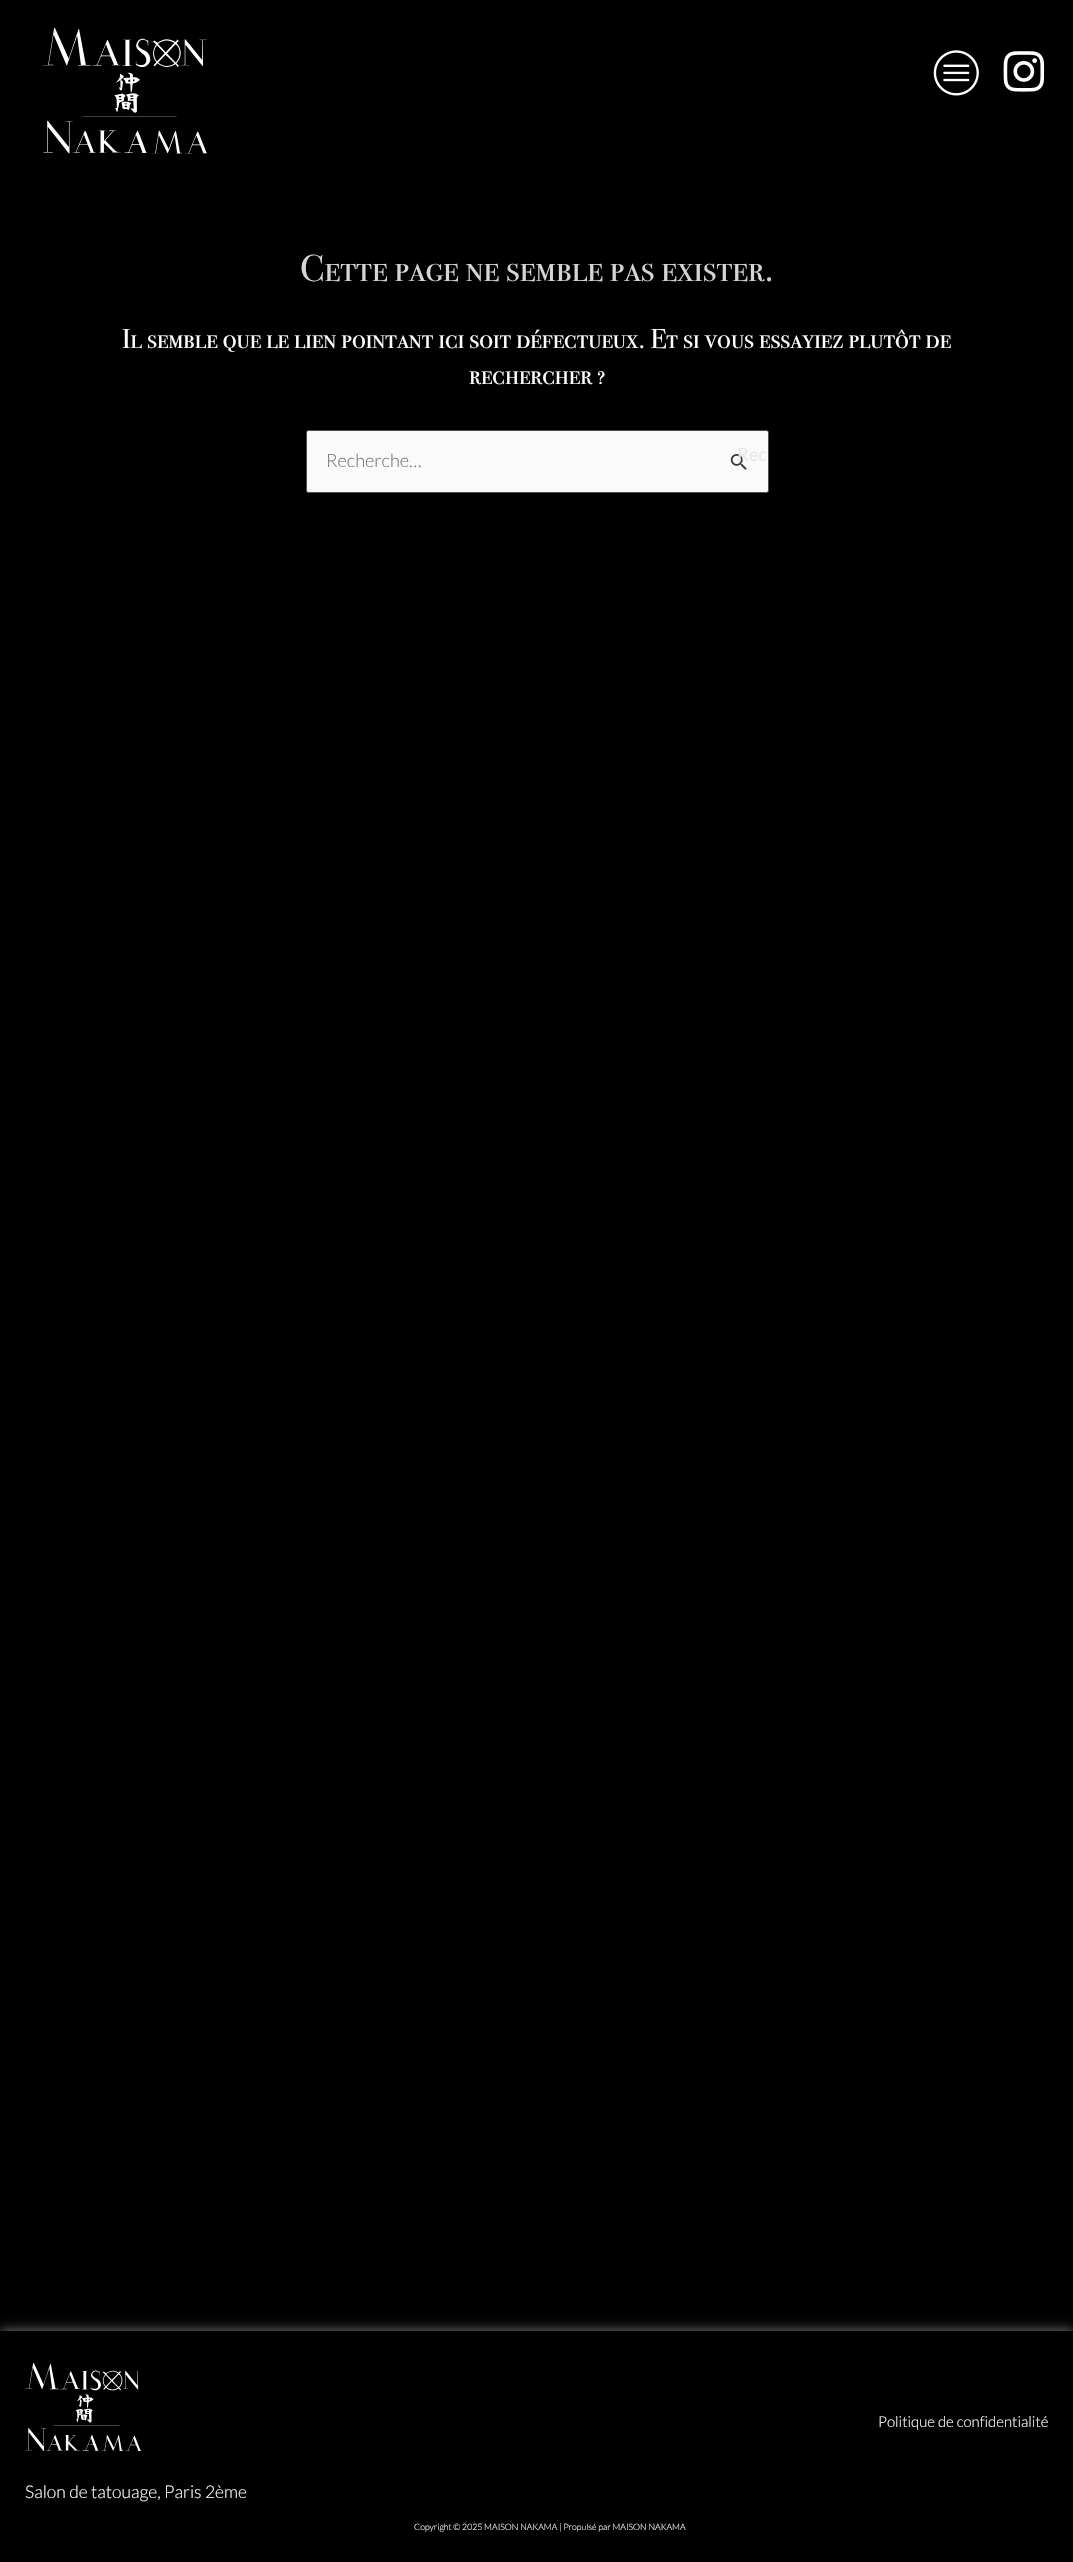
#include "include/core/SkBlurTypes.h"
#include "include/core/SkCanvas.h"
#include "include/core/SkData.h"
#include "include/core/SkFont.h"
#include "include/core/SkFontMgr.h"
#include "include/core/SkImage.h"
#include "include/core/SkMaskFilter.h"
#include "include/core/SkPaint.h"
#include "include/core/SkPathBuilder.h"
#include "include/core/SkTextBlob.h"
#include "include/effects/SkDashPathEffect.h"
#include "include/effects/SkGradientShader.h"
#include "include/utils/SkParsePath.h"

extern sk_sp<SkFontMgr> fontMgr;

void draw(SkCanvas* canvas) {
    SkPaint p;
    p.setAntiAlias(true);
    auto font = [&](const char* family, int weight, float size, bool italic = false) {
        SkFontStyle style(weight, SkFontStyle::kNormal_Width,
            italic ? SkFontStyle::kItalic_Slant : SkFontStyle::kUpright_Slant);
        SkFont result(fontMgr->matchFamilyStyle(family, style), size);
        result.setSubpixel(true);
        return result;
    };
    auto drawPhoto = [&](const char* path, float l, float t, float r, float b) {
        auto image = SkImages::DeferredFromEncodedData(SkData::MakeFromFileName(path));
        canvas->drawImageRect(image, SkRect::MakeLTRB(l, t, r, b), SkSamplingOptions());
    };
    canvas->clear(0xFF000000);
    drawPhoto("media/1.png", 43, 28, 207, 154);
    drawPhoto("media/2.png", 933, 50, 979, 96);
    drawPhoto("media/3.png", 1003, 51, 1045, 92);
    auto font1 = font("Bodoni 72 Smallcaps", 400, 37.5f);
    p.setColor(0xFFD5D5D5);
    canvas->drawString("Cette page ne semble pas exister.", 300, 281, font1, p);
    auto font2 = font("Bodoni 72 Smallcaps", 400, 27.35f);
    p.setColor(0xFFFFFFFF);
    canvas->drawString("Il semble que le lien pointant ici soit défectueux. Et si vous essayiez plutôt de", 122, 348, font2, p);
    canvas->drawString("rechercher ?", 469, 384, font2, p);
    p.setColor(0xFFFAFAFA);
    canvas->drawRoundRect(SkRect::MakeLTRB(306.5f, 430.5f, 768.5f, 492.5f), 2, 2, p);
    p.setStyle(SkPaint::kStroke_Style);
    p.setStrokeWidth(1);
    p.setColor(0xFF505050);
    canvas->drawRoundRect(SkRect::MakeLTRB(306.5f, 430.5f, 768.5f, 492.5f), 2, 2, p);
    auto font3 = font("Lato", 300, 18.25f);
    p.setStyle(SkPaint::kFill_Style);
    p.setColor(0xFF757575);
    canvas->drawString("Recherche…", 326, 467, font3, p);
    drawPhoto("media/4.png", 730, 454, 747, 470);
    auto font4 = font("Lato", 400, 18.25f);
    p.setColor(0xFFE9E9E9);
    canvas->drawString("Rec", 737, 461, font4, p);
    canvas->save();
    canvas->clipPath(SkPathBuilder(SkPathFillType::kEvenOdd).moveTo(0, 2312).lineTo(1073, 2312).lineTo(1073, 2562).lineTo(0, 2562).close().moveTo(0, 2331).lineTo(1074, 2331).lineTo(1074, 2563).lineTo(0, 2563).close().detach(), true);
    p.setColor(0x80FFFFFF);
    p.setMaskFilter(SkMaskFilter::MakeBlur(kNormal_SkBlurStyle, 6));
    canvas->drawRect(SkRect::MakeLTRB(0, 2331, 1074, 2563), p);
    p.setMaskFilter(nullptr);
    canvas->restore();
    auto font5 = font("Lato", 300, 15);
    p.setColor(0xFFFFFFFF);
    canvas->drawString("Politique de confidentialité", 878, 2427, font5, p);
    drawPhoto("media/5.png", 25, 2363, 141, 2451);
    auto font6 = font("Lato", 300, 17.5f);
    canvas->drawString("Salon de tatouage, Paris 2ème", 25, 2498, font6, p);
    auto font7 = font("Lato", 300, 8.75f);
    canvas->drawString("Copyright © 2025 MAISON NAKAMA | Propulsé par MAISON NAKAMA", 414, 2530, font7, p);
}
